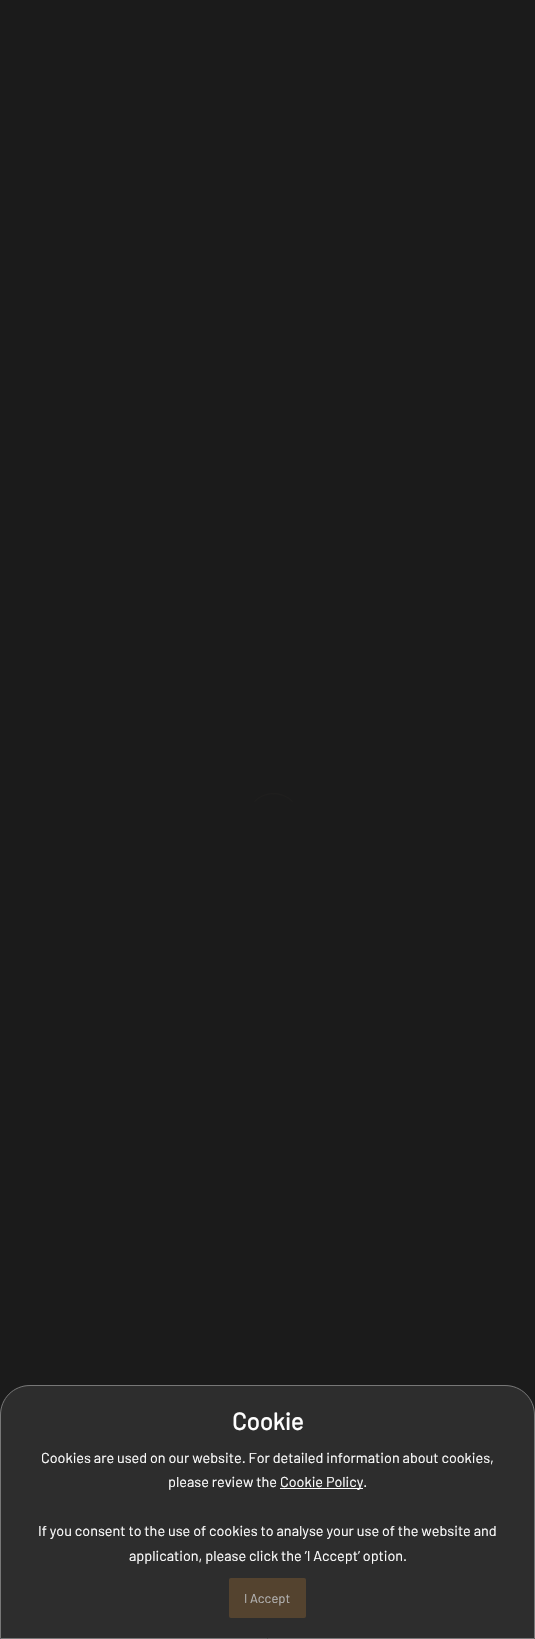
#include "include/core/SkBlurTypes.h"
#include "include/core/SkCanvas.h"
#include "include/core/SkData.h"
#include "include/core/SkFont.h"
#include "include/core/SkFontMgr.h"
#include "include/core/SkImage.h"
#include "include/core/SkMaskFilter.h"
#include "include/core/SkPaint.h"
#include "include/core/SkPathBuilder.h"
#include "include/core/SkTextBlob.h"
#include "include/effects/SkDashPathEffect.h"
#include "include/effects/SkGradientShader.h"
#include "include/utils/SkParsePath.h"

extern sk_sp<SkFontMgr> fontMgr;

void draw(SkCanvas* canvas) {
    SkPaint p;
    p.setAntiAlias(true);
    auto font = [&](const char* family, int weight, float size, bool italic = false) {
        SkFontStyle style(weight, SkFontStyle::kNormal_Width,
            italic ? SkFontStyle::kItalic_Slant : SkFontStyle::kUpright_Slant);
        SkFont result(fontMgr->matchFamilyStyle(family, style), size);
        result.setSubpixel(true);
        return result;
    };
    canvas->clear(0xFF1B1B1B);
    p.setStyle(SkPaint::kStroke_Style);
    p.setStrokeWidth(1);
    p.setColor(0xFF1F1E1D);
    canvas->drawPath(SkPathBuilder().moveTo(254.5f, 801.5f).cubicTo(265, 791, 282, 791, 292.5f, 801.5f).detach(), p);
    p.setStyle(SkPaint::kFill_Style);
    p.setColor(0xFF2D2D2D);
    canvas->drawPath(SkPathBuilder().moveTo(30, 1385.5f).lineTo(505, 1385.5f).cubicTo(521.5f, 1385.5f, 534.5f, 1398.5f, 534.5f, 1415).lineTo(534.5f, 1638.5f).lineTo(0.5f, 1638.5f).lineTo(0.5f, 1415).cubicTo(0.5f, 1398.5f, 13.5f, 1385.5f, 30, 1385.5f).close().detach(), p);
    p.setStyle(SkPaint::kStroke_Style);
    p.setColor(0xFF777777);
    canvas->drawPath(SkPathBuilder().moveTo(30, 1385.5f).lineTo(505, 1385.5f).cubicTo(521.5f, 1385.5f, 534.5f, 1398.5f, 534.5f, 1415).lineTo(534.5f, 1638.5f).lineTo(0.5f, 1638.5f).lineTo(0.5f, 1415).cubicTo(0.5f, 1398.5f, 13.5f, 1385.5f, 30, 1385.5f).close().detach(), p);
    auto font1 = font("Barlow", 700, 24);
    p.setStyle(SkPaint::kFill_Style);
    p.setColor(0xFFFEFEFE);
    canvas->drawString("Cookie", 232, 1430, font1, p);
    auto font2 = font("Barlow", 400, 14.4f);
    canvas->drawString("Cookies are used on our website. For detailed information about cookies,", 41, 1463, font2, p);
    canvas->drawString("please review the", 168, 1487, font2, p);
    canvas->drawRect(SkRect::MakeLTRB(280, 1488, 363, 1489), p);
    {
        const struct { const char* s; float x, y; } items[] = {
            {"Cookie Policy.", 280, 1487},
            {"If you consent to the use of cookies to analyse your use of the website and", 38, 1536},
            {"application, please click the ‘I Accept’ option.", 129, 1561},
        };
        for (auto [s, x, y] : items) {
            canvas->drawString(s, x, y, font2, p);
        }
    }
    p.setColor(0xFF54432F);
    canvas->drawRoundRect(SkRect::MakeLTRB(229, 1578, 306, 1618), 2, 2, p);
    auto font3 = font("Barlow", 400, 13);
    p.setColor(0xFFB5B5B5);
    canvas->drawString("I Accept", 244, 1603, font3, p);
}
